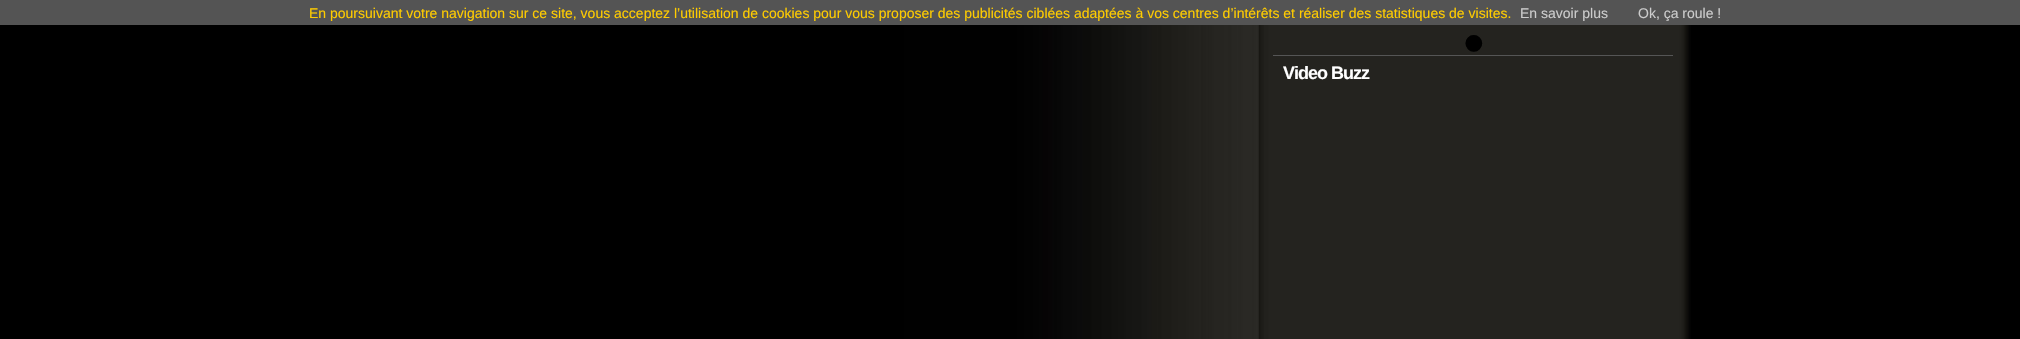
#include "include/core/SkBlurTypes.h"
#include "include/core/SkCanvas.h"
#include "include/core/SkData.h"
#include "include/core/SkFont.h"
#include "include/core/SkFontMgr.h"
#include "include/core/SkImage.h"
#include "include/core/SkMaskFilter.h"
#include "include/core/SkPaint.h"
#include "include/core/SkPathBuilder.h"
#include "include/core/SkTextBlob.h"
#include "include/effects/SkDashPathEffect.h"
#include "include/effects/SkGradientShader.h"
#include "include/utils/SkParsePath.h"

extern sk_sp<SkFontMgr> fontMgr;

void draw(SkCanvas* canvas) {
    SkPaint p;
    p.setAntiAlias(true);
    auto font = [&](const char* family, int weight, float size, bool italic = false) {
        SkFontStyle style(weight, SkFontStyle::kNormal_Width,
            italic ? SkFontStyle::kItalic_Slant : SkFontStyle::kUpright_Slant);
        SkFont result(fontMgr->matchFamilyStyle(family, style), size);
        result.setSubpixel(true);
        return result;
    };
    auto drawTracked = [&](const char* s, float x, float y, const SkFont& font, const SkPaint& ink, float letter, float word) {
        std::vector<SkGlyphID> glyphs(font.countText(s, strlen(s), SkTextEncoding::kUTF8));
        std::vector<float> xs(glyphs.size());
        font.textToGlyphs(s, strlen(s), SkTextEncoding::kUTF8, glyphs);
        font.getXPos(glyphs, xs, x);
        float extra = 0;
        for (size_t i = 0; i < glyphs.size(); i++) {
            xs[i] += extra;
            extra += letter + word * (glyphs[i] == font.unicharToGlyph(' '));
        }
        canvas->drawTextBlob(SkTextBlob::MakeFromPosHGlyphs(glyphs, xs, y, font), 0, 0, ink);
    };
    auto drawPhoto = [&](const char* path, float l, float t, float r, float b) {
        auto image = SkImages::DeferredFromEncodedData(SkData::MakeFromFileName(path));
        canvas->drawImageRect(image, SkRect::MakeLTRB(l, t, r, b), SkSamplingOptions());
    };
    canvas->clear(0xFF000000);
    p.setColor(0xFF545454);
    canvas->drawRect(SkRect::MakeLTRB(0, 0, 2020, 25), p);
    auto font1 = font("Liberation Sans", 400, 14);
    p.setColor(0xFFFFCC00);
    canvas->drawString("En poursuivant votre navigation sur ce site, vous acceptez l’utilisation de cookies pour vous proposer des publicités ciblées adaptées à vos centres d’intérêts et réaliser des statistiques de visites.", 309, 18, font1, p);
    p.setColor(0xFFCCCCCC);
    canvas->drawString("En savoir plus", 1520, 18, font1, p);
    canvas->drawString("Ok, ça roule !", 1638, 18, font1, p);
    drawPhoto("media/1.png", 329, 25, 1691, 339);
    auto font2 = font("Liberation Sans", 400, 62);
    p.setColor(0xFF000000);
    canvas->drawString("•", 1463, 64, font2, p);
    p.setColor(0xFF555555);
    canvas->drawRect(SkRect::MakeLTRB(1273, 55, 1673, 56), p);
    auto font3 = font("Liberation Sans", 700, 18);
    p.setColor(0xFFFFFFFF);
    drawTracked("Video Buzz", 1283, 79, font3, p, -1, 0);
}
